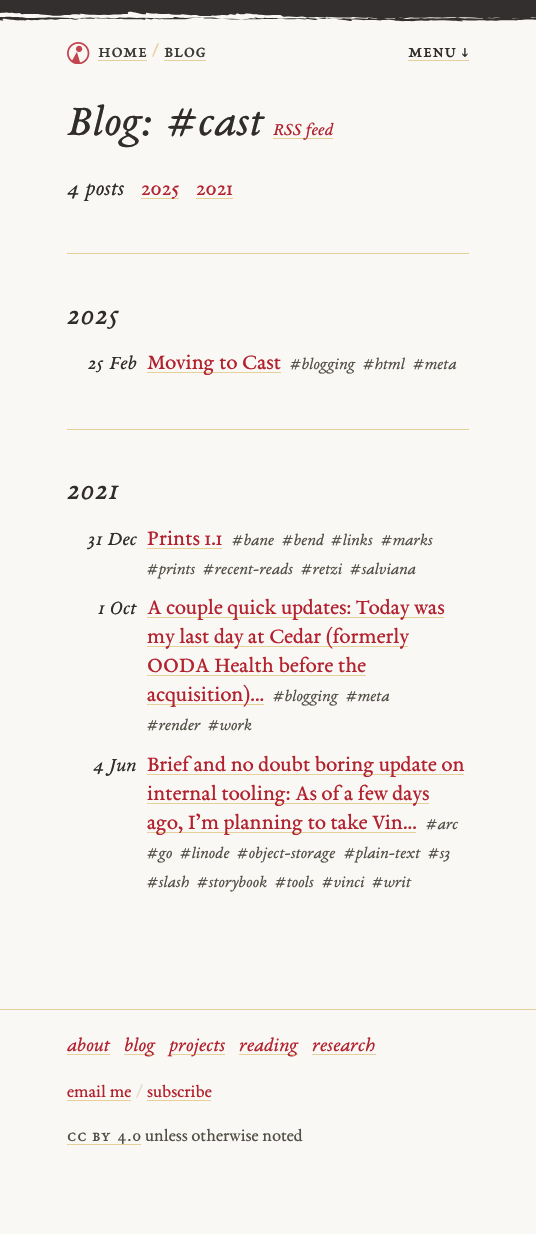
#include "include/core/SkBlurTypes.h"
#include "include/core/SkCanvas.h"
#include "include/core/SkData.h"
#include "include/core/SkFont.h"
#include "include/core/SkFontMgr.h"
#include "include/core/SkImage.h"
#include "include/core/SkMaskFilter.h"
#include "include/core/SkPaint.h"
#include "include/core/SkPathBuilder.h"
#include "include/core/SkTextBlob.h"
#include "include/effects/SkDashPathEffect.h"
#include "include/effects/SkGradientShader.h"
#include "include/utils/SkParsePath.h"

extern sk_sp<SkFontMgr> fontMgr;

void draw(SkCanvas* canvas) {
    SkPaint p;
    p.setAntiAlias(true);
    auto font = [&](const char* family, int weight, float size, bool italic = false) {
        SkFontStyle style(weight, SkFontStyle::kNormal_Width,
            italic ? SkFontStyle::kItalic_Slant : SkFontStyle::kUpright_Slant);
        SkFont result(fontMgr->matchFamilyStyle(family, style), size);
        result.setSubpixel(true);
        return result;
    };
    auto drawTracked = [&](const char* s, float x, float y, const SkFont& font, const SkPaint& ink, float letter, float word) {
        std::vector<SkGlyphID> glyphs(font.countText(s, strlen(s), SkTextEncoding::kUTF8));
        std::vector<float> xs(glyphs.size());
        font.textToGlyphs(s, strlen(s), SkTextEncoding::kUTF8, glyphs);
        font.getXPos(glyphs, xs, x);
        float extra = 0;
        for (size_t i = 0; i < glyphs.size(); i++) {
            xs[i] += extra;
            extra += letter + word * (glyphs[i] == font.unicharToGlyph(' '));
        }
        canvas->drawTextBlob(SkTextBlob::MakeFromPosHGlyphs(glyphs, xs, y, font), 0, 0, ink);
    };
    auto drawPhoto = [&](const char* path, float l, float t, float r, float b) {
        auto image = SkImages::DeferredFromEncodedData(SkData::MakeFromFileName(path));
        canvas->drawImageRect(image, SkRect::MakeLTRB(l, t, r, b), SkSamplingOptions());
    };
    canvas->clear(0xFFFAF8F5);
    drawPhoto("media/1.png", 0, 0, 536, 22);
    drawPhoto("media/2.png", 67, 42, 90, 64);
    auto font1 = font("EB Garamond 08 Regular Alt", 400, 20);
    p.setColor(0xFF3C3939);
    drawTracked("home", 98, 57, font1, p, 0.5f, 0);
    p.setColor(0xFFE6D099);
    canvas->drawRect(SkRect::MakeLTRB(98, 60, 147, 61), p);
    auto font2 = font("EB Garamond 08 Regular", 400, 18);
    drawTracked("/", 152, 56, font2, p, 0.5f, 0);
    p.setColor(0xFF3C3939);
    drawTracked("blog", 164, 57, font1, p, 0.5f, 0);
    p.setColor(0xFFE6D099);
    canvas->drawRect(SkRect::MakeLTRB(164, 60, 206, 61), p);
    p.setColor(0xFF302D2C);
    drawTracked("menu ↓", 408, 57, font1, p, 0.5f, 0);
    p.setColor(0xFFE6D099);
    canvas->drawRect(SkRect::MakeLTRB(408, 60, 469, 61), p);
    auto font3 = font("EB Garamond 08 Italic", 400, 45, true);
    p.setColor(0xFF302D2C);
    canvas->drawString("Blog: #cast", 67, 135, font3, p);
    p.setColor(0xFFE6D099);
    canvas->drawRect(SkRect::MakeLTRB(273, 138, 333, 139), p);
    auto font4 = font("EB Garamond 08 Italic", 400, 18, true);
    p.setColor(0xFFB3232F);
    canvas->drawString("RSS feed", 273, 135, font4, p);
    auto font5 = font("EB Garamond 08 Italic", 400, 22.4f, true);
    p.setColor(0xFF302D2C);
    canvas->drawString("4 posts", 67, 195, font5, p);
    p.setColor(0xFFE6D099);
    canvas->drawRect(SkRect::MakeLTRB(141, 198, 179, 199), p);
    auto font6 = font("EB Garamond 08 Regular", 400, 22.4f);
    p.setColor(0xFFB3232F);
    canvas->drawString("2025", 141, 195, font6, p);
    canvas->drawString("2021", 196, 195, font6, p);
    p.setColor(0xFFE6D099);
    canvas->drawRect(SkRect::MakeLTRB(196, 198, 233, 199), p);
    canvas->drawRect(SkRect::MakeLTRB(67, 253, 469, 254), p);
    auto font7 = font("EB Garamond 08 Italic", 400, 31, true);
    p.setColor(0xFF302D2C);
    canvas->drawString("2025", 67, 324, font7, p);
    auto font8 = font("EB Garamond 08 Italic", 400, 20, true);
    canvas->drawString("25 Feb", 88, 369, font8, p);
    p.setColor(0xFFE6D099);
    canvas->drawRect(SkRect::MakeLTRB(147, 372, 281, 373), p);
    p.setColor(0xFFB3232F);
    canvas->drawString("Moving to Cast", 147, 369, font6, p);
    auto font9 = font("EB Garamond 08 Italic", 400, 16.75f, true);
    p.setColor(0xFF535046);
    {
        const struct { const char* s; float x, y; } items[] = {
            {"#blogging", 290, 369},
            {"#html", 363, 369},
            {"#meta", 413, 369},
        };
        for (auto [s, x, y] : items) {
            canvas->drawString(s, x, y, font9, p);
        }
    }
    p.setColor(0xFFE6D099);
    canvas->drawRect(SkRect::MakeLTRB(67, 429, 469, 430), p);
    p.setColor(0xFF302D2C);
    canvas->drawString("2021", 67, 499, font7, p);
    canvas->drawString("31 Dec", 88, 545, font8, p);
    p.setColor(0xFFB3232F);
    canvas->drawString("Prints 1.1", 147, 545, font6, p);
    p.setColor(0xFFE6D099);
    canvas->drawRect(SkRect::MakeLTRB(147, 548, 222, 549), p);
    p.setColor(0xFF535046);
    {
        const struct { const char* s; float x, y; } items[] = {
            {"#bane", 232, 545},
            {"#bend", 282, 545},
            {"#links", 331, 545},
            {"#marks", 381, 545},
            {"#prints", 147, 574},
            {"#recent-reads", 203, 574},
            {"#retzi", 301, 574},
            {"#salviana", 350, 574},
        };
        for (auto [s, x, y] : items) {
            canvas->drawString(s, x, y, font9, p);
        }
    }
    p.setColor(0xFF302D2C);
    canvas->drawString("1 Oct", 98, 614, font8, p);
    p.setColor(0xFFE6D099);
    canvas->drawRect(SkRect::MakeLTRB(147, 617, 444, 618), p);
    p.setColor(0xFFB3232F);
    canvas->drawString("A couple quick updates: Today was", 147, 614, font6, p);
    p.setColor(0xFFE6D099);
    canvas->drawRect(SkRect::MakeLTRB(147, 646, 408, 647), p);
    p.setColor(0xFFB3232F);
    canvas->drawString("my last day at Cedar (formerly", 147, 643, font6, p);
    canvas->drawString("OODA Health before the", 147, 672, font6, p);
    p.setColor(0xFFE6D099);
    canvas->drawRect(SkRect::MakeLTRB(147, 675, 366, 676), p);
    canvas->drawRect(SkRect::MakeLTRB(147, 704, 264, 705), p);
    p.setColor(0xFFB3232F);
    canvas->drawString("acquisition)...", 147, 701, font6, p);
    p.setColor(0xFF535046);
    {
        const struct { const char* s; float x, y; } items[] = {
            {"#blogging", 273, 701},
            {"#meta", 346, 701},
            {"#render", 147, 730},
            {"#work", 208, 730},
        };
        for (auto [s, x, y] : items) {
            canvas->drawString(s, x, y, font9, p);
        }
    }
    p.setColor(0xFF302D2C);
    canvas->drawString("4 Jun", 93, 771, font8, p);
    p.setColor(0xFFE6D099);
    canvas->drawRect(SkRect::MakeLTRB(147, 774, 464, 775), p);
    p.setColor(0xFFB3232F);
    canvas->drawString("Brief and no doubt boring update on", 147, 771, font6, p);
    p.setColor(0xFFE6D099);
    canvas->drawRect(SkRect::MakeLTRB(147, 803, 429, 804), p);
    p.setColor(0xFFB3232F);
    canvas->drawString("internal tooling: As of a few days", 147, 800, font6, p);
    p.setColor(0xFFE6D099);
    canvas->drawRect(SkRect::MakeLTRB(147, 832, 416, 833), p);
    p.setColor(0xFFB3232F);
    canvas->drawString("ago, I’m planning to take Vin...", 147, 829, font6, p);
    p.setColor(0xFF535046);
    {
        const struct { const char* s; float x, y; } items[] = {
            {"#arc", 426, 829},
            {"#go", 147, 858},
            {"#linode", 180, 858},
            {"#object-storage", 237, 858},
            {"#plain-text", 344, 858},
            {"#s3", 428, 858},
            {"#slash", 147, 887},
            {"#storybook", 197, 887},
            {"#tools", 275, 887},
            {"#vinci", 322, 887},
            {"#writ", 372, 887},
        };
        for (auto [s, x, y] : items) {
            canvas->drawString(s, x, y, font9, p);
        }
    }
    p.setColor(0xFFE6D099);
    canvas->drawRect(SkRect::MakeLTRB(0, 1009, 536, 1010), p);
    p.setColor(0xFFB3232F);
    canvas->drawString("about", 67, 1051, font8, p);
    p.setColor(0xFFE6D099);
    canvas->drawRect(SkRect::MakeLTRB(67, 1054, 110, 1055), p);
    canvas->drawRect(SkRect::MakeLTRB(124, 1054, 155, 1055), p);
    p.setColor(0xFFB3232F);
    canvas->drawString("blog", 124, 1051, font8, p);
    p.setColor(0xFFE6D099);
    canvas->drawRect(SkRect::MakeLTRB(169, 1054, 225, 1055), p);
    p.setColor(0xFFB3232F);
    canvas->drawString("projects", 169, 1051, font8, p);
    p.setColor(0xFFE6D099);
    canvas->drawRect(SkRect::MakeLTRB(239, 1054, 298, 1055), p);
    p.setColor(0xFFB3232F);
    canvas->drawString("reading", 239, 1051, font8, p);
    canvas->drawString("research", 312, 1051, font8, p);
    p.setColor(0xFFE6D099);
    canvas->drawRect(SkRect::MakeLTRB(312, 1054, 376, 1055), p);
    p.setColor(0xFFB3232F);
    canvas->drawString("email me", 67, 1097, font2, p);
    p.setColor(0xFFE6D099);
    canvas->drawRect(SkRect::MakeLTRB(67, 1100, 131, 1101), p);
    p.setColor(0xFFE4DECD);
    canvas->drawString("/", 136, 1097, font2, p);
    p.setColor(0xFFB3232F);
    canvas->drawString("subscribe", 147, 1097, font2, p);
    p.setColor(0xFFE6D099);
    canvas->drawRect(SkRect::MakeLTRB(147, 1100, 211, 1101), p);
    auto font10 = font("EB Garamond 08 Regular Alt", 400, 18);
    p.setColor(0xFF535046);
    drawTracked("cc by 4.0", 67, 1141, font10, p, 1, 0);
    p.setColor(0xFFE6D099);
    canvas->drawRect(SkRect::MakeLTRB(67, 1144, 141, 1145), p);
    p.setColor(0xFF535046);
    canvas->drawString("unless otherwise noted", 145, 1141, font2, p);
}
